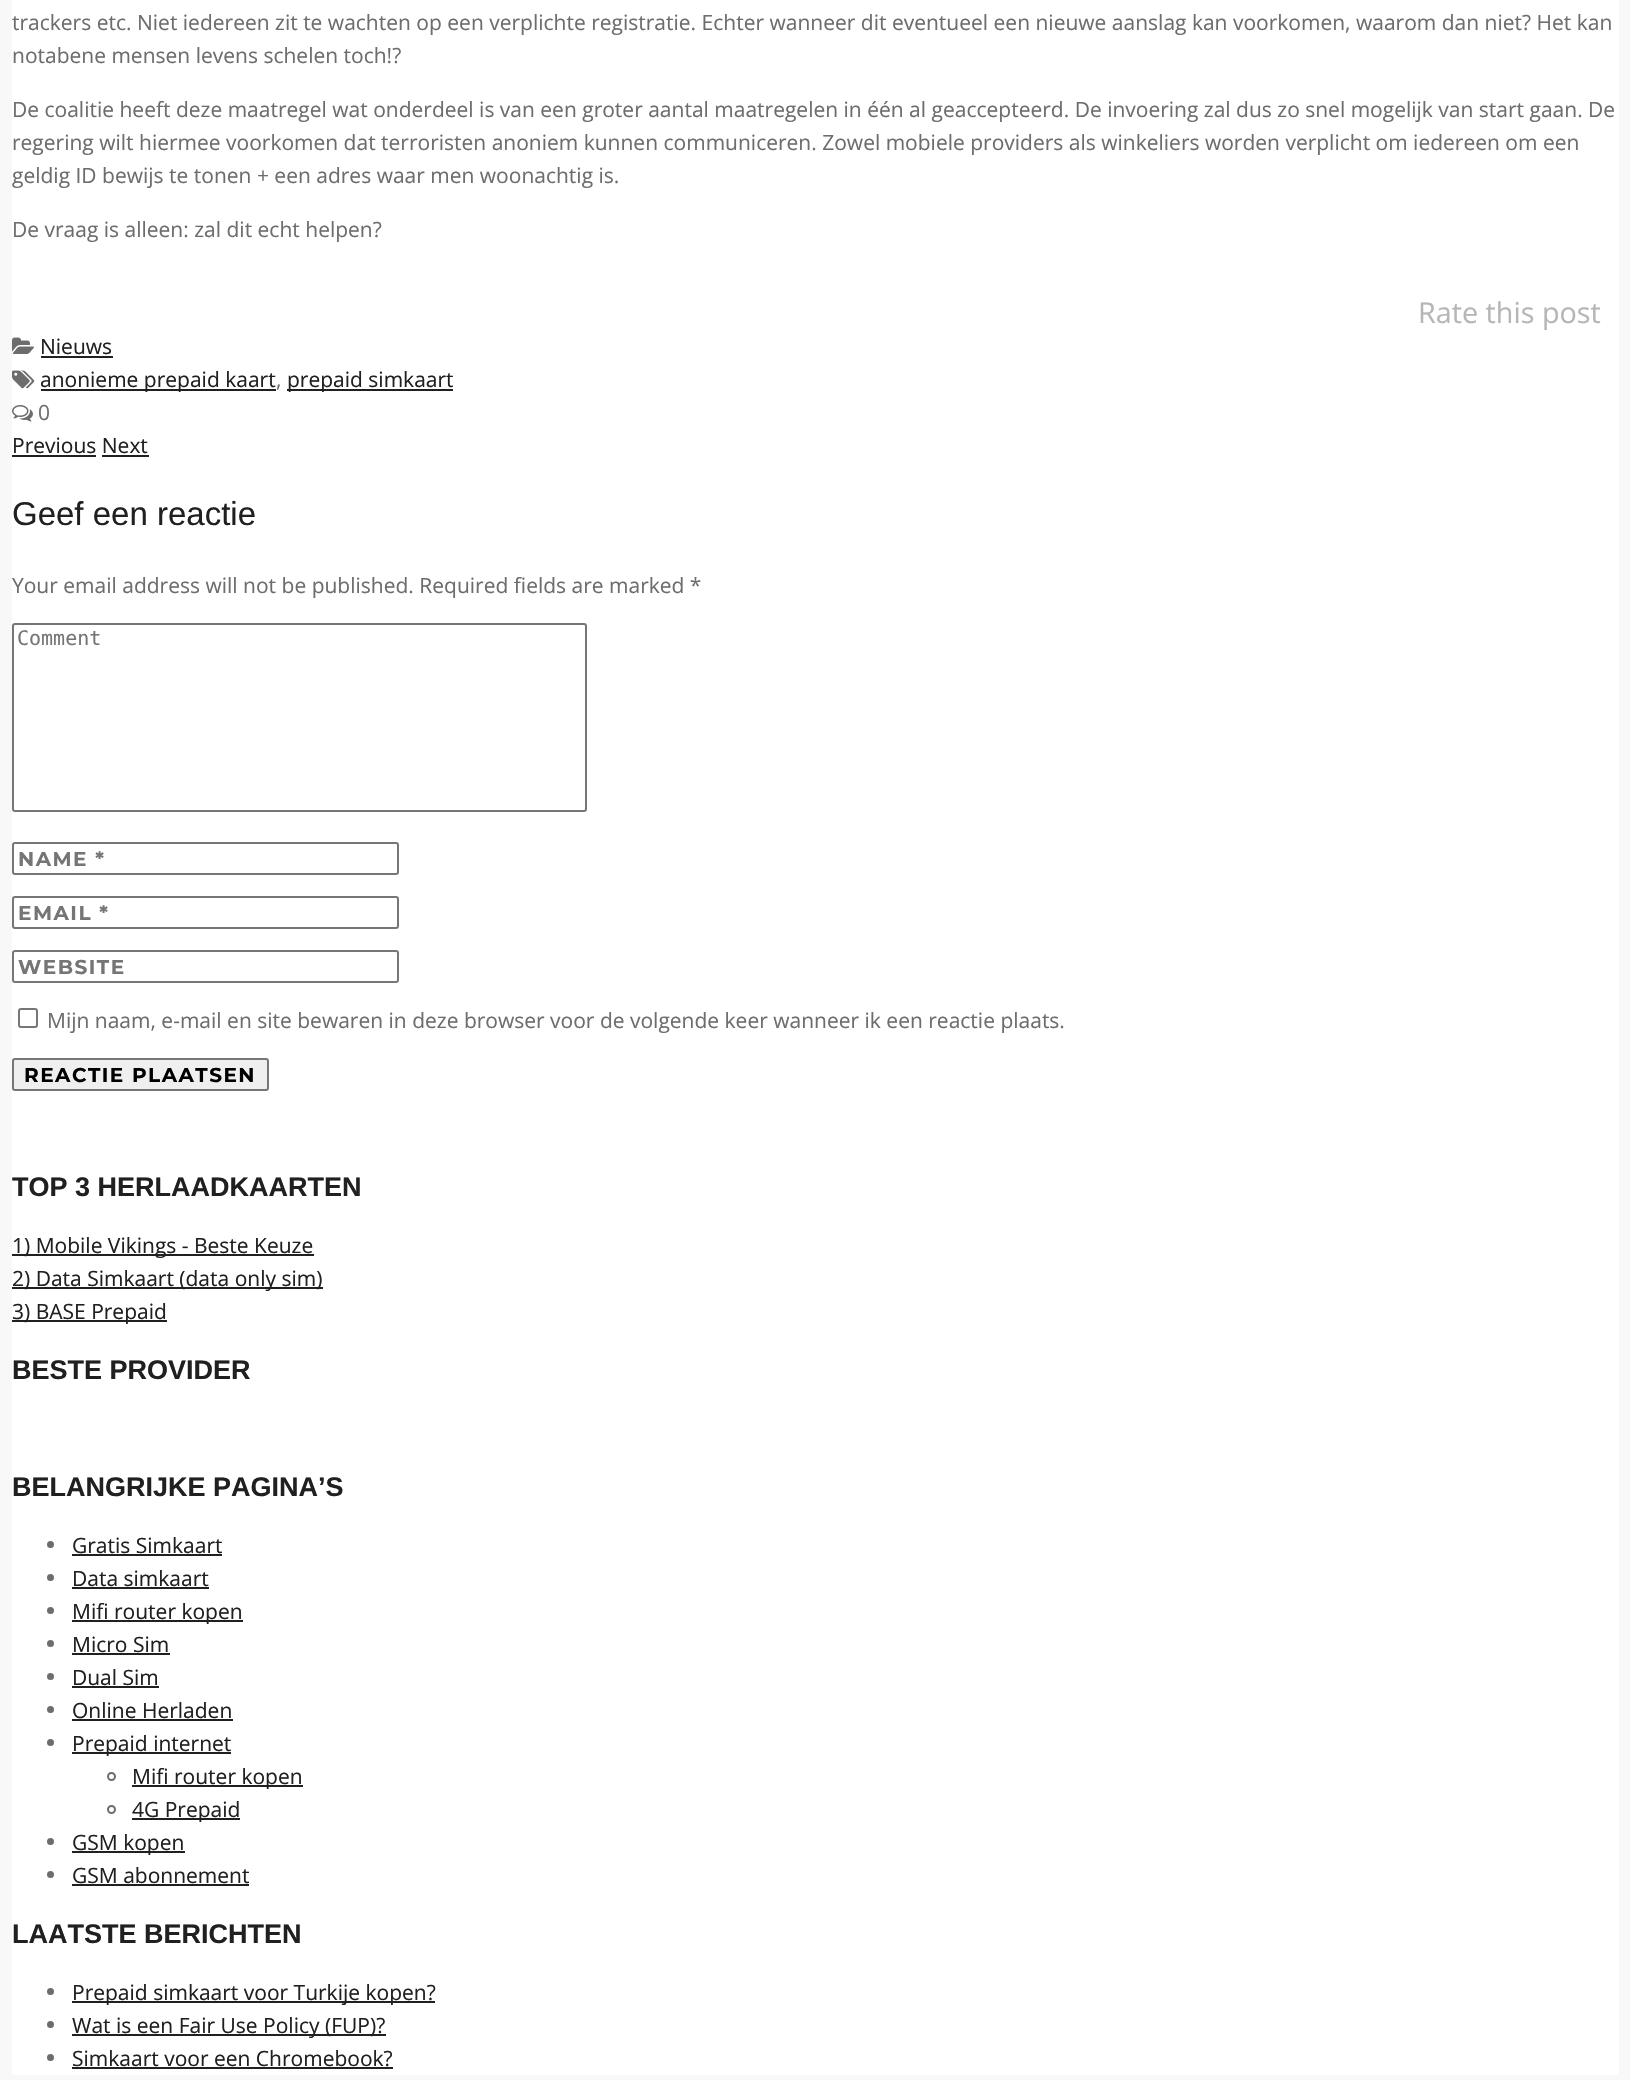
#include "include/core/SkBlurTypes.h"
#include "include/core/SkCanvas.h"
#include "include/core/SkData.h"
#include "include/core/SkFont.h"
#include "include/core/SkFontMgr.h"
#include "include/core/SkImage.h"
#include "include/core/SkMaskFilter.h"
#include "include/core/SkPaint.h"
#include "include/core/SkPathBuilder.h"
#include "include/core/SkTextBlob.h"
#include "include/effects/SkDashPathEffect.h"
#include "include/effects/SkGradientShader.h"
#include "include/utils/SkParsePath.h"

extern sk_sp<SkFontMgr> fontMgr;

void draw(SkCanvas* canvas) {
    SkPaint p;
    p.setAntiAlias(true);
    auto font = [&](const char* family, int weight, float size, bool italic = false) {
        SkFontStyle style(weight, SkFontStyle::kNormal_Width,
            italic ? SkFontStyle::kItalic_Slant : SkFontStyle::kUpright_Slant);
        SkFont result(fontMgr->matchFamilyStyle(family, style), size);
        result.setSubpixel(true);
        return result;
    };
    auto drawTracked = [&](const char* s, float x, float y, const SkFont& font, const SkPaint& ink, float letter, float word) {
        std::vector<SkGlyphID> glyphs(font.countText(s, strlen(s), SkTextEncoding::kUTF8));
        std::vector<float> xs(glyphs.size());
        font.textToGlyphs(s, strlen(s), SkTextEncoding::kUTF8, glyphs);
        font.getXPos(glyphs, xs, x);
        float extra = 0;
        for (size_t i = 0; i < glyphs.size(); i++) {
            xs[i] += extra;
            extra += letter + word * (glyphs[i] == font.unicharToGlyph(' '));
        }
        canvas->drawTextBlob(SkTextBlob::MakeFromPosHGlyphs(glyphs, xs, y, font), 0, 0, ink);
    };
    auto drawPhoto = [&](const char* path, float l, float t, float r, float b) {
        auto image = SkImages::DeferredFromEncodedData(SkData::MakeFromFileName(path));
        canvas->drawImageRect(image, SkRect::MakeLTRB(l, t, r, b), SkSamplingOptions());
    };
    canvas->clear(0xFFF8F8F8);
    p.setColor(0xFFFFFFFF);
    canvas->drawRect(SkRect::MakeLTRB(12, 0, 1619, 2075), p);
    auto font1 = font("Open Sans", 400, 21);
    p.setColor(0xFF6D6D6D);
    {
        const struct { const char* s; float x, y; } items[] = {
            {"trackers etc. Niet iedereen zit te wachten op een verplichte registratie. Echter wanneer dit eventueel een nieuwe aanslag kan voorkomen, waarom dan niet? Het kan", 12, 30},
            {"notabene mensen levens schelen toch!?", 12, 63},
            {"De coalitie heeft deze maatregel wat onderdeel is van een groter aantal maatregelen in één al geaccepteerd. De invoering zal dus zo snel mogelijk van start gaan. De", 12, 117},
            {"regering wilt hiermee voorkomen dat terroristen anoniem kunnen communiceren. Zowel mobiele providers als winkeliers worden verplicht om iedereen om een", 12, 150},
            {"geldig ID bewijs te tonen + een adres waar men woonachtig is.", 12, 183},
            {"De vraag is alleen: zal dit echt helpen?", 12, 237},
        };
        for (auto [s, x, y] : items) {
            canvas->drawString(s, x, y, font1, p);
        }
    }
    auto font2 = font("Open Sans", 400, 28.75f);
    p.setColor(0xFFB6B6B6);
    canvas->drawString("Rate this post", 1418, 323, font2, p);
    drawPhoto("media/1.png", 12, 337, 34, 354);
    p.setColor(0xFF202020);
    canvas->drawString("Nieuws", 40, 354, font1, p);
    canvas->drawRect(SkRect::MakeLTRB(41, 356, 113, 358), p);
    drawPhoto("media/2.png", 12, 370, 35, 389);
    canvas->drawRect(SkRect::MakeLTRB(41, 389, 276, 391), p);
    canvas->drawString("anonieme prepaid kaart", 40, 387, font1, p);
    p.setColor(0xFF6D6D6D);
    canvas->drawString(",", 276, 387, font1, p);
    p.setColor(0xFF202020);
    canvas->drawRect(SkRect::MakeLTRB(287, 389, 453, 391), p);
    canvas->drawString("prepaid simkaart", 287, 387, font1, p);
    drawPhoto("media/3.png", 12, 405, 33, 422);
    p.setColor(0xFF6D6D6D);
    canvas->drawString("0", 38, 420, font1, p);
    p.setColor(0xFF202020);
    canvas->drawString("Previous Next", 12, 453, font1, p);
    canvas->drawRect(SkRect::MakeLTRB(12, 455, 96, 457), p);
    canvas->drawRect(SkRect::MakeLTRB(102, 455, 149, 457), p);
    auto font3 = font("Arimo", 400, 33);
    canvas->drawString("Geef een reactie", 12, 525, font3, p);
    p.setColor(0xFF6D6D6D);
    canvas->drawString("Your email address will not be published. Required fields are marked *", 12, 593, font1, p);
    p.setStyle(SkPaint::kStroke_Style);
    p.setStrokeWidth(2);
    p.setColor(0xFF767676);
    canvas->drawRoundRect(SkRect::MakeLTRB(13, 624, 586, 811), 2, 2, p);
    auto font4 = font("DejaVu Sans Mono", 400, 20);
    p.setStyle(SkPaint::kFill_Style);
    p.setColor(0xFF757575);
    canvas->drawString("Comment", 17, 645, font4, p);
    p.setStyle(SkPaint::kStroke_Style);
    p.setColor(0xFF767676);
    canvas->drawRoundRect(SkRect::MakeLTRB(13, 843, 398, 874), 2, 2, p);
    auto font5 = font("Montserrat", 100, 20);
    p.setStyle(SkPaint::kFill_Style);
    p.setColor(0xFF757575);
    drawTracked("NAME *", 18, 866, font5, p, 1.5f, 0);
    p.setStyle(SkPaint::kStroke_Style);
    p.setColor(0xFF767676);
    canvas->drawRoundRect(SkRect::MakeLTRB(13, 897, 398, 928), 2, 2, p);
    p.setStyle(SkPaint::kFill_Style);
    p.setColor(0xFF757575);
    drawTracked("EMAIL *", 18, 920, font5, p, 1.5f, 0);
    p.setStyle(SkPaint::kStroke_Style);
    p.setColor(0xFF767676);
    canvas->drawRoundRect(SkRect::MakeLTRB(13, 951, 398, 982), 2, 2, p);
    p.setStyle(SkPaint::kFill_Style);
    p.setColor(0xFF757575);
    drawTracked("WEBSITE", 18, 974, font5, p, 1.5f, 0);
    p.setStyle(SkPaint::kStroke_Style);
    p.setColor(0xFF767676);
    canvas->drawRoundRect(SkRect::MakeLTRB(19, 1009, 37, 1027), 2, 2, p);
    p.setStyle(SkPaint::kFill_Style);
    p.setColor(0xFF6D6D6D);
    canvas->drawString("Mijn naam, e-mail en site bewaren in deze browser voor de volgende keer wanneer ik een reactie plaats.", 47, 1028, font1, p);
    p.setColor(0xFFEFEFEF);
    canvas->drawRoundRect(SkRect::MakeLTRB(13, 1059, 268, 1090), 2, 2, p);
    p.setStyle(SkPaint::kStroke_Style);
    p.setColor(0xFF767676);
    canvas->drawRoundRect(SkRect::MakeLTRB(13, 1059, 268, 1090), 2, 2, p);
    p.setStyle(SkPaint::kFill_Style);
    p.setColor(0xFF000000);
    drawTracked("REACTIE PLAATSEN", 24, 1082, font5, p, 1.5f, 0);
    auto font6 = font("Arimo", 700, 27);
    p.setColor(0xFF202020);
    canvas->drawString("TOP 3 HERLAADKAARTEN", 12, 1196, font6, p);
    canvas->drawRect(SkRect::MakeLTRB(12, 1254, 314, 1256), p);
    canvas->drawString("1) Mobile Vikings - Beste Keuze", 12, 1253, font1, p);
    canvas->drawRect(SkRect::MakeLTRB(12, 1287, 323, 1289), p);
    canvas->drawString("2) Data Simkaart (data only sim)", 12, 1286, font1, p);
    canvas->drawRect(SkRect::MakeLTRB(12, 1320, 167, 1322), p);
    canvas->drawString("3) BASE Prepaid", 12, 1319, font1, p);
    canvas->drawString("BESTE PROVIDER", 12, 1379, font6, p);
    canvas->drawString("BELANGRIJKE PAGINA’S", 12, 1496, font6, p);
    p.setColor(0xFF6D6D6D);
    canvas->drawCircle(50.5f, 1544.5f, 3.5f, p);
    p.setColor(0xFF202020);
    canvas->drawString("Gratis Simkaart", 72, 1553, font1, p);
    canvas->drawRect(SkRect::MakeLTRB(72, 1554, 222, 1556), p);
    p.setColor(0xFF6D6D6D);
    canvas->drawCircle(50.5f, 1577.5f, 3.5f, p);
    p.setColor(0xFF202020);
    canvas->drawString("Data simkaart", 72, 1586, font1, p);
    canvas->drawRect(SkRect::MakeLTRB(72, 1587, 209, 1589), p);
    p.setColor(0xFF6D6D6D);
    canvas->drawCircle(50.5f, 1610.5f, 3.5f, p);
    p.setColor(0xFF202020);
    canvas->drawRect(SkRect::MakeLTRB(72, 1620, 243, 1622), p);
    canvas->drawString("Mifi router kopen", 72, 1619, font1, p);
    p.setColor(0xFF6D6D6D);
    canvas->drawCircle(50.5f, 1643.5f, 3.5f, p);
    p.setColor(0xFF202020);
    canvas->drawString("Micro Sim", 72, 1652, font1, p);
    canvas->drawRect(SkRect::MakeLTRB(72, 1653, 170, 1655), p);
    p.setColor(0xFF6D6D6D);
    canvas->drawCircle(50.5f, 1676.5f, 3.5f, p);
    p.setColor(0xFF202020);
    canvas->drawString("Dual Sim", 72, 1685, font1, p);
    canvas->drawRect(SkRect::MakeLTRB(72, 1686, 159, 1688), p);
    p.setColor(0xFF6D6D6D);
    canvas->drawCircle(50.5f, 1709.5f, 3.5f, p);
    p.setColor(0xFF202020);
    canvas->drawString("Online Herladen", 72, 1718, font1, p);
    canvas->drawRect(SkRect::MakeLTRB(72, 1719, 233, 1721), p);
    p.setColor(0xFF6D6D6D);
    canvas->drawCircle(50.5f, 1742.5f, 3.5f, p);
    p.setColor(0xFF202020);
    canvas->drawRect(SkRect::MakeLTRB(72, 1752, 231, 1754), p);
    canvas->drawString("Prepaid internet", 72, 1751, font1, p);
    p.setStyle(SkPaint::kStroke_Style);
    p.setColor(0xFF6D6D6D);
    canvas->drawCircle(111.5f, 1776.5f, 3.5f, p);
    p.setStyle(SkPaint::kFill_Style);
    p.setColor(0xFF202020);
    canvas->drawRect(SkRect::MakeLTRB(132, 1785, 303, 1787), p);
    canvas->drawString("Mifi router kopen", 132, 1784, font1, p);
    p.setStyle(SkPaint::kStroke_Style);
    p.setColor(0xFF6D6D6D);
    canvas->drawCircle(111.5f, 1809.5f, 3.5f, p);
    p.setStyle(SkPaint::kFill_Style);
    p.setColor(0xFF202020);
    canvas->drawRect(SkRect::MakeLTRB(132, 1818, 240, 1820), p);
    canvas->drawString("4G Prepaid", 132, 1817, font1, p);
    p.setColor(0xFF6D6D6D);
    canvas->drawCircle(50.5f, 1841.5f, 3.5f, p);
    p.setColor(0xFF202020);
    canvas->drawRect(SkRect::MakeLTRB(72, 1851, 185, 1853), p);
    canvas->drawString("GSM kopen", 72, 1850, font1, p);
    p.setColor(0xFF6D6D6D);
    canvas->drawCircle(50.5f, 1874.5f, 3.5f, p);
    p.setColor(0xFF202020);
    canvas->drawString("GSM abonnement", 72, 1883, font1, p);
    canvas->drawRect(SkRect::MakeLTRB(72, 1884, 249, 1886), p);
    canvas->drawString("LAATSTE BERICHTEN", 12, 1943, font6, p);
    p.setColor(0xFF6D6D6D);
    canvas->drawCircle(50.5f, 1991.5f, 3.5f, p);
    p.setColor(0xFF202020);
    canvas->drawRect(SkRect::MakeLTRB(72, 2001, 435, 2003), p);
    canvas->drawString("Prepaid simkaart voor Turkije kopen?", 72, 2000, font1, p);
    p.setColor(0xFF6D6D6D);
    canvas->drawCircle(50.5f, 2024.5f, 3.5f, p);
    p.setColor(0xFF202020);
    canvas->drawRect(SkRect::MakeLTRB(72, 2034, 386, 2036), p);
    canvas->drawString("Wat is een Fair Use Policy (FUP)?", 72, 2033, font1, p);
    p.setColor(0xFF6D6D6D);
    canvas->drawCircle(50.5f, 2057.5f, 3.5f, p);
    p.setColor(0xFF202020);
    canvas->drawString("Simkaart voor een Chromebook?", 72, 2066, font1, p);
    canvas->drawRect(SkRect::MakeLTRB(72, 2067, 393, 2069), p);
}
